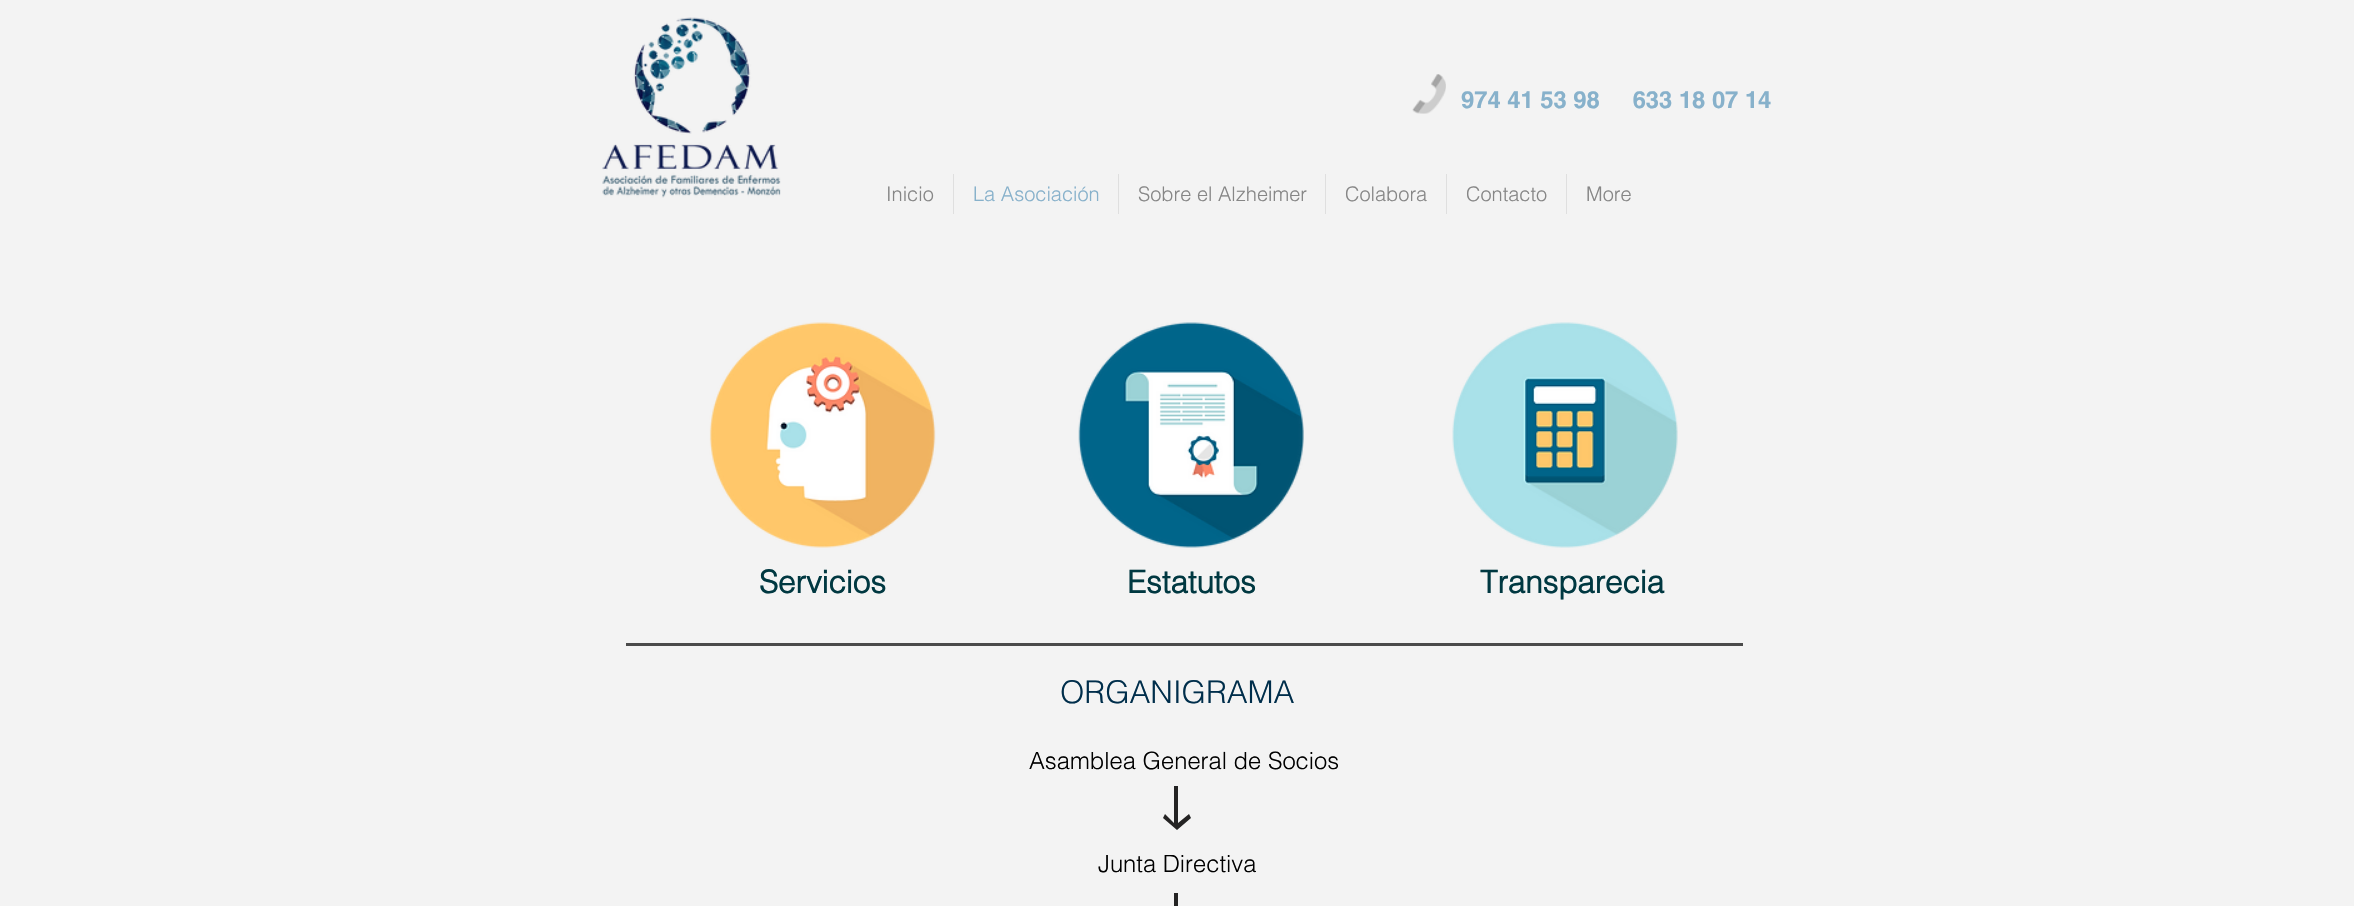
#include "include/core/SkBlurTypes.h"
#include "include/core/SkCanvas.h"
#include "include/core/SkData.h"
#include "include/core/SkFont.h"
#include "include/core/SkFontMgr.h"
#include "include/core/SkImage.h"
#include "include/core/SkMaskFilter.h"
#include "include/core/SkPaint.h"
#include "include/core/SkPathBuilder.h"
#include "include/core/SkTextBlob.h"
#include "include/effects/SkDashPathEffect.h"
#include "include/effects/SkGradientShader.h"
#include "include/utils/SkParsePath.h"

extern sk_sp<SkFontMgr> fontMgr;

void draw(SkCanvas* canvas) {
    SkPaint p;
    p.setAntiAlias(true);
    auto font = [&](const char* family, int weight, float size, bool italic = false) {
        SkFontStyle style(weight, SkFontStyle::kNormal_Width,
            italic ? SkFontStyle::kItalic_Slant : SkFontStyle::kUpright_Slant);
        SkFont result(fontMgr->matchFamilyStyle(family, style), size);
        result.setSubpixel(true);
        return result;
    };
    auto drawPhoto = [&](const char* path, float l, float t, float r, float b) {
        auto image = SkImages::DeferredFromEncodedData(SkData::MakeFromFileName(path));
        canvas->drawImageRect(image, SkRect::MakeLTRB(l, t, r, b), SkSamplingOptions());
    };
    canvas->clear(0xFFF3F3F3);
    drawPhoto("media/1.png", 602, 17, 781, 198);
    drawPhoto("media/2.png", 1412, 74, 1446, 114);
    auto font1 = font("helvetica", 700, 23.75f);
    p.setColor(0xFF87B1CB);
    canvas->drawString("974 41 53 98     633 18 07 14", 1461, 108, font1, p);
    auto font2 = font("helvetica", 300, 20);
    p.setColor(0xFF868686);
    canvas->drawString("Inicio", 886, 201, font2, p);
    p.setColor(0xFFDFDFDF);
    canvas->drawRect(SkRect::MakeLTRB(953, 174, 954, 214), p);
    p.setColor(0xFF87B1CB);
    canvas->drawString("La Asociación", 973, 201, font2, p);
    p.setColor(0xFFDFDFDF);
    canvas->drawRect(SkRect::MakeLTRB(1118, 174, 1119, 214), p);
    p.setColor(0xFF868686);
    canvas->drawString("Sobre el Alzheimer", 1138, 201, font2, p);
    p.setColor(0xFFDFDFDF);
    canvas->drawRect(SkRect::MakeLTRB(1325, 174, 1326, 214), p);
    p.setColor(0xFF868686);
    canvas->drawString("Colabora", 1345, 201, font2, p);
    p.setColor(0xFFDFDFDF);
    canvas->drawRect(SkRect::MakeLTRB(1446, 174, 1447, 214), p);
    p.setColor(0xFF868686);
    canvas->drawString("Contacto", 1466, 201, font2, p);
    p.setColor(0xFFDFDFDF);
    canvas->drawRect(SkRect::MakeLTRB(1566, 174, 1567, 214), p);
    p.setColor(0xFF868686);
    canvas->drawString("More", 1586, 201, font2, p);
    drawPhoto("media/3.png", 709, 322, 936, 548);
    drawPhoto("media/4.png", 1078, 322, 1304, 548);
    drawPhoto("media/5.png", 1452, 322, 1678, 548);
    auto font3 = font("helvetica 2", 700, 31.25f);
    p.setColor(0xFF003841);
    {
        const struct { const char* s; float x, y; } items[] = {
            {"Servicios", 759, 593},
            {"Estatutos", 1127, 593},
            {"Transparecia", 1480, 593},
        };
        for (auto [s, x, y] : items) {
            canvas->drawString(s, x, y, font3, p);
        }
    }
    p.setColor(0xFF4A4A4A);
    canvas->drawRect(SkRect::MakeLTRB(626, 643, 1743, 646), p);
    auto font4 = font("helvetica", 300, 31.25f);
    p.setColor(0xFF002E4B);
    canvas->drawString("ORGANIGRAMA", 1060, 703, font4, p);
    auto font5 = font("helvetica", 300, 23.75f);
    p.setColor(0xFF000000);
    canvas->drawString("Asamblea General de Socios", 1029, 769, font5, p);
    p.setColor(0xFF242323);
    canvas->drawPath(SkPathBuilder().moveTo(1189, 814).lineTo(1178, 823).lineTo(1178, 786).lineTo(1174, 786).lineTo(1174, 823).lineTo(1165, 814).lineTo(1163, 818).lineTo(1177, 830).lineTo(1191, 818).close().detach(), p);
    p.setColor(0xFF000000);
    canvas->drawString("Junta Directiva", 1098, 872, font5, p);
    p.setColor(0xFF242323);
    canvas->drawPath(SkPathBuilder().moveTo(1189, 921).lineTo(1178, 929).lineTo(1178, 893).lineTo(1174, 893).lineTo(1174, 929).lineTo(1165, 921).lineTo(1163, 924).lineTo(1177, 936).lineTo(1191, 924).close().detach(), p);
}
